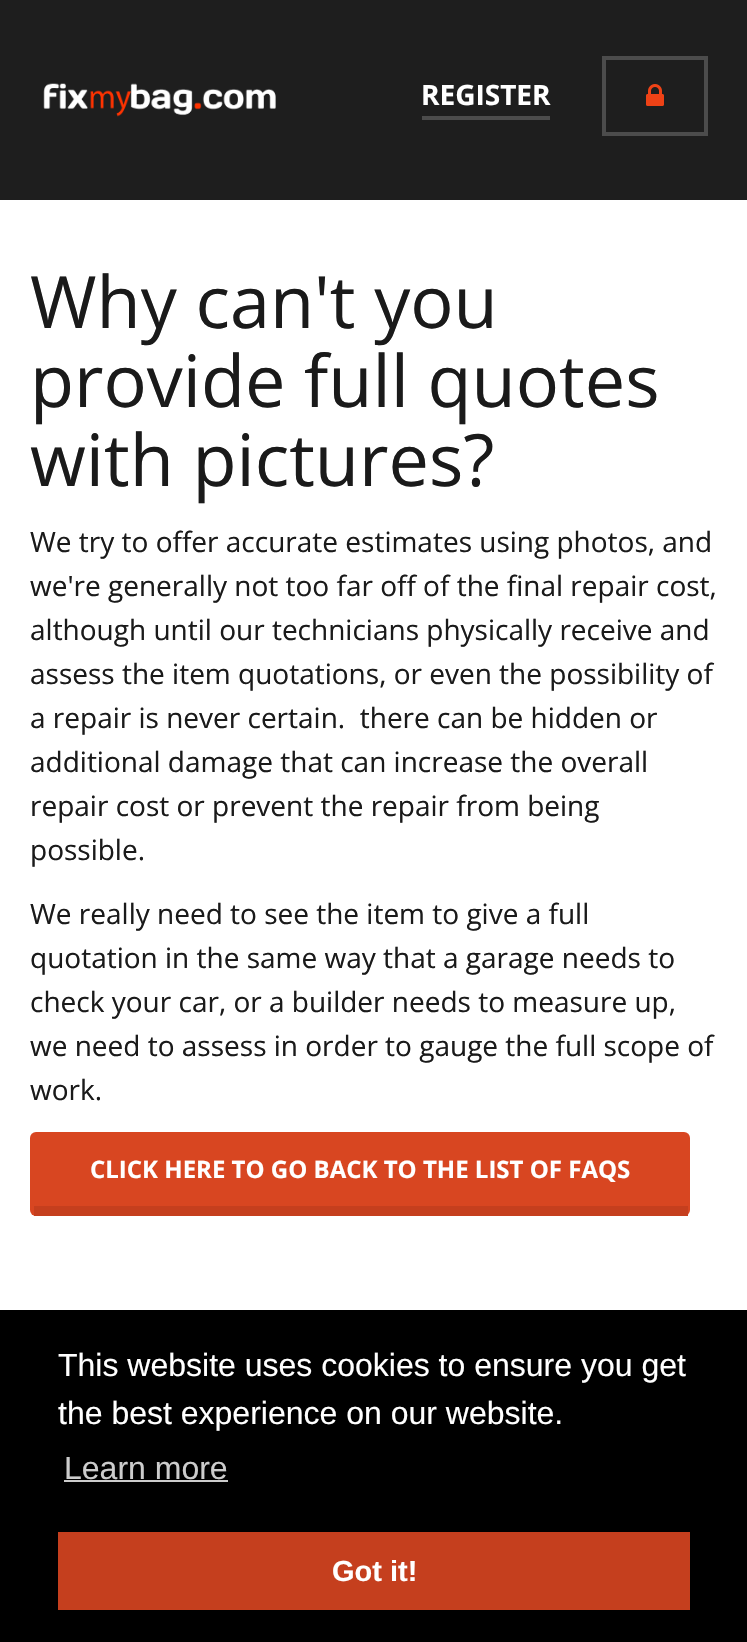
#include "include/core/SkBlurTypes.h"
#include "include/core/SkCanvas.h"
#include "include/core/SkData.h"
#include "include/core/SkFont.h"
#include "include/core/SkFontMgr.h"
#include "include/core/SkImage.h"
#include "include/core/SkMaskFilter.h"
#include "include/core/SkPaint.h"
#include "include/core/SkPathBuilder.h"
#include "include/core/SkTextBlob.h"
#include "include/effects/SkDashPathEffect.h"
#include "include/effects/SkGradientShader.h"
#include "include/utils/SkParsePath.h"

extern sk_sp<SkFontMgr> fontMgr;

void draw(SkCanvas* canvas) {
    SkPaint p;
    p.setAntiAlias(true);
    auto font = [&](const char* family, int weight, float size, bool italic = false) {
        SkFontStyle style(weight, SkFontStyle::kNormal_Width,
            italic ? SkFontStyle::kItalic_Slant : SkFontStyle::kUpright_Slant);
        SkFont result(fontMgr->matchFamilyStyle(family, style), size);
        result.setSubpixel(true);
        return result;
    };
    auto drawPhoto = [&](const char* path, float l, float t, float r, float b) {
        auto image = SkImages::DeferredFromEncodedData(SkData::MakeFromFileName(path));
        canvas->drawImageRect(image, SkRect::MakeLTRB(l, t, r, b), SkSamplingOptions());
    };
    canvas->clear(0xFFFFFFFF);
    p.setColor(0xFF1E1E1E);
    canvas->drawRect(SkRect::MakeLTRB(0, 0, 747, 200), p);
    drawPhoto("media/1.png", 43, 83, 276, 117);
    p.setColor(0xFF4C4C4C);
    canvas->drawRect(SkRect::MakeLTRB(422, 116, 550, 120), p);
    auto font1 = font("Open Sans", 700, 28);
    p.setColor(0xFFFFFFFF);
    canvas->drawString("REGISTER", 421, 105, font1, p);
    p.setStyle(SkPaint::kStroke_Style);
    p.setStrokeWidth(4);
    p.setColor(0xFF4C4C4C);
    canvas->drawRect(SkRect::MakeLTRB(604, 58, 706, 134), p);
    drawPhoto("media/2.png", 646, 84, 664, 106);
    auto font2 = font("Open Sans", 400, 72);
    p.setStyle(SkPaint::kFill_Style);
    p.setColor(0xFF1A1A1A);
    {
        const struct { const char* s; float x, y; } items[] = {
            {"Why can't you", 30, 328},
            {"provide full quotes", 30, 407},
            {"with pictures?", 30, 486},
        };
        for (auto [s, x, y] : items) {
            canvas->drawString(s, x, y, font2, p);
        }
    }
    auto font3 = font("Open Sans", 400, 28);
    {
        const struct { const char* s; float x, y; } items[] = {
            {"We try to offer accurate estimates using photos, and", 30, 552},
            {"we're generally not too far off of the final repair cost,", 30, 596},
            {"although until our technicians physically receive and", 30, 640},
            {"assess the item quotations, or even the possibility of", 30, 684},
            {"a repair is never certain.  there can be hidden or", 30, 728},
            {"additional damage that can increase the overall", 30, 772},
            {"repair cost or prevent the repair from being", 30, 816},
            {"possible.", 30, 860},
            {"We really need to see the item to give a full", 30, 924},
            {"quotation in the same way that a garage needs to", 30, 968},
            {"check your car, or a builder needs to measure up,", 30, 1012},
            {"we need to assess in order to gauge the full scope of", 30, 1056},
            {"work.", 30, 1100},
        };
        for (auto [s, x, y] : items) {
            canvas->drawString(s, x, y, font3, p);
        }
    }
    p.setColor(0xFFD84621);
    canvas->drawRoundRect(SkRect::MakeLTRB(30, 1132, 690, 1216), 6, 6, p);
    p.setColor(0xFFC53F1E);
    canvas->drawRect(SkRect::MakeLTRB(34, 1206, 688, 1216), p);
    auto font4 = font("Open Sans", 700, 24);
    p.setColor(0xFFFFFFFF);
    canvas->drawString("CLICK HERE TO GO BACK TO THE LIST OF FAQS", 90, 1178, font4, p);
    p.setColor(0xFF000000);
    canvas->drawRect(SkRect::MakeLTRB(0, 1310, 747, 1642), p);
    auto font5 = font("Liberation Sans", 400, 32);
    p.setColor(0xFFFFFFFF);
    canvas->drawString("This website uses cookies to ensure you get", 58, 1376, font5, p);
    canvas->drawString("the best experience on our website.", 58, 1424, font5, p);
    p.setColor(0xFFCCCCCC);
    canvas->drawString("Learn more", 64, 1479, font5, p);
    canvas->drawRect(SkRect::MakeLTRB(64, 1480, 228, 1482), p);
    p.setColor(0xFFC53F1E);
    canvas->drawRect(SkRect::MakeLTRB(58, 1532, 690, 1610), p);
    auto font6 = font("Liberation Sans", 700, 29);
    p.setColor(0xFFFFFFFF);
    canvas->drawString("Got it!", 332, 1581, font6, p);
}
